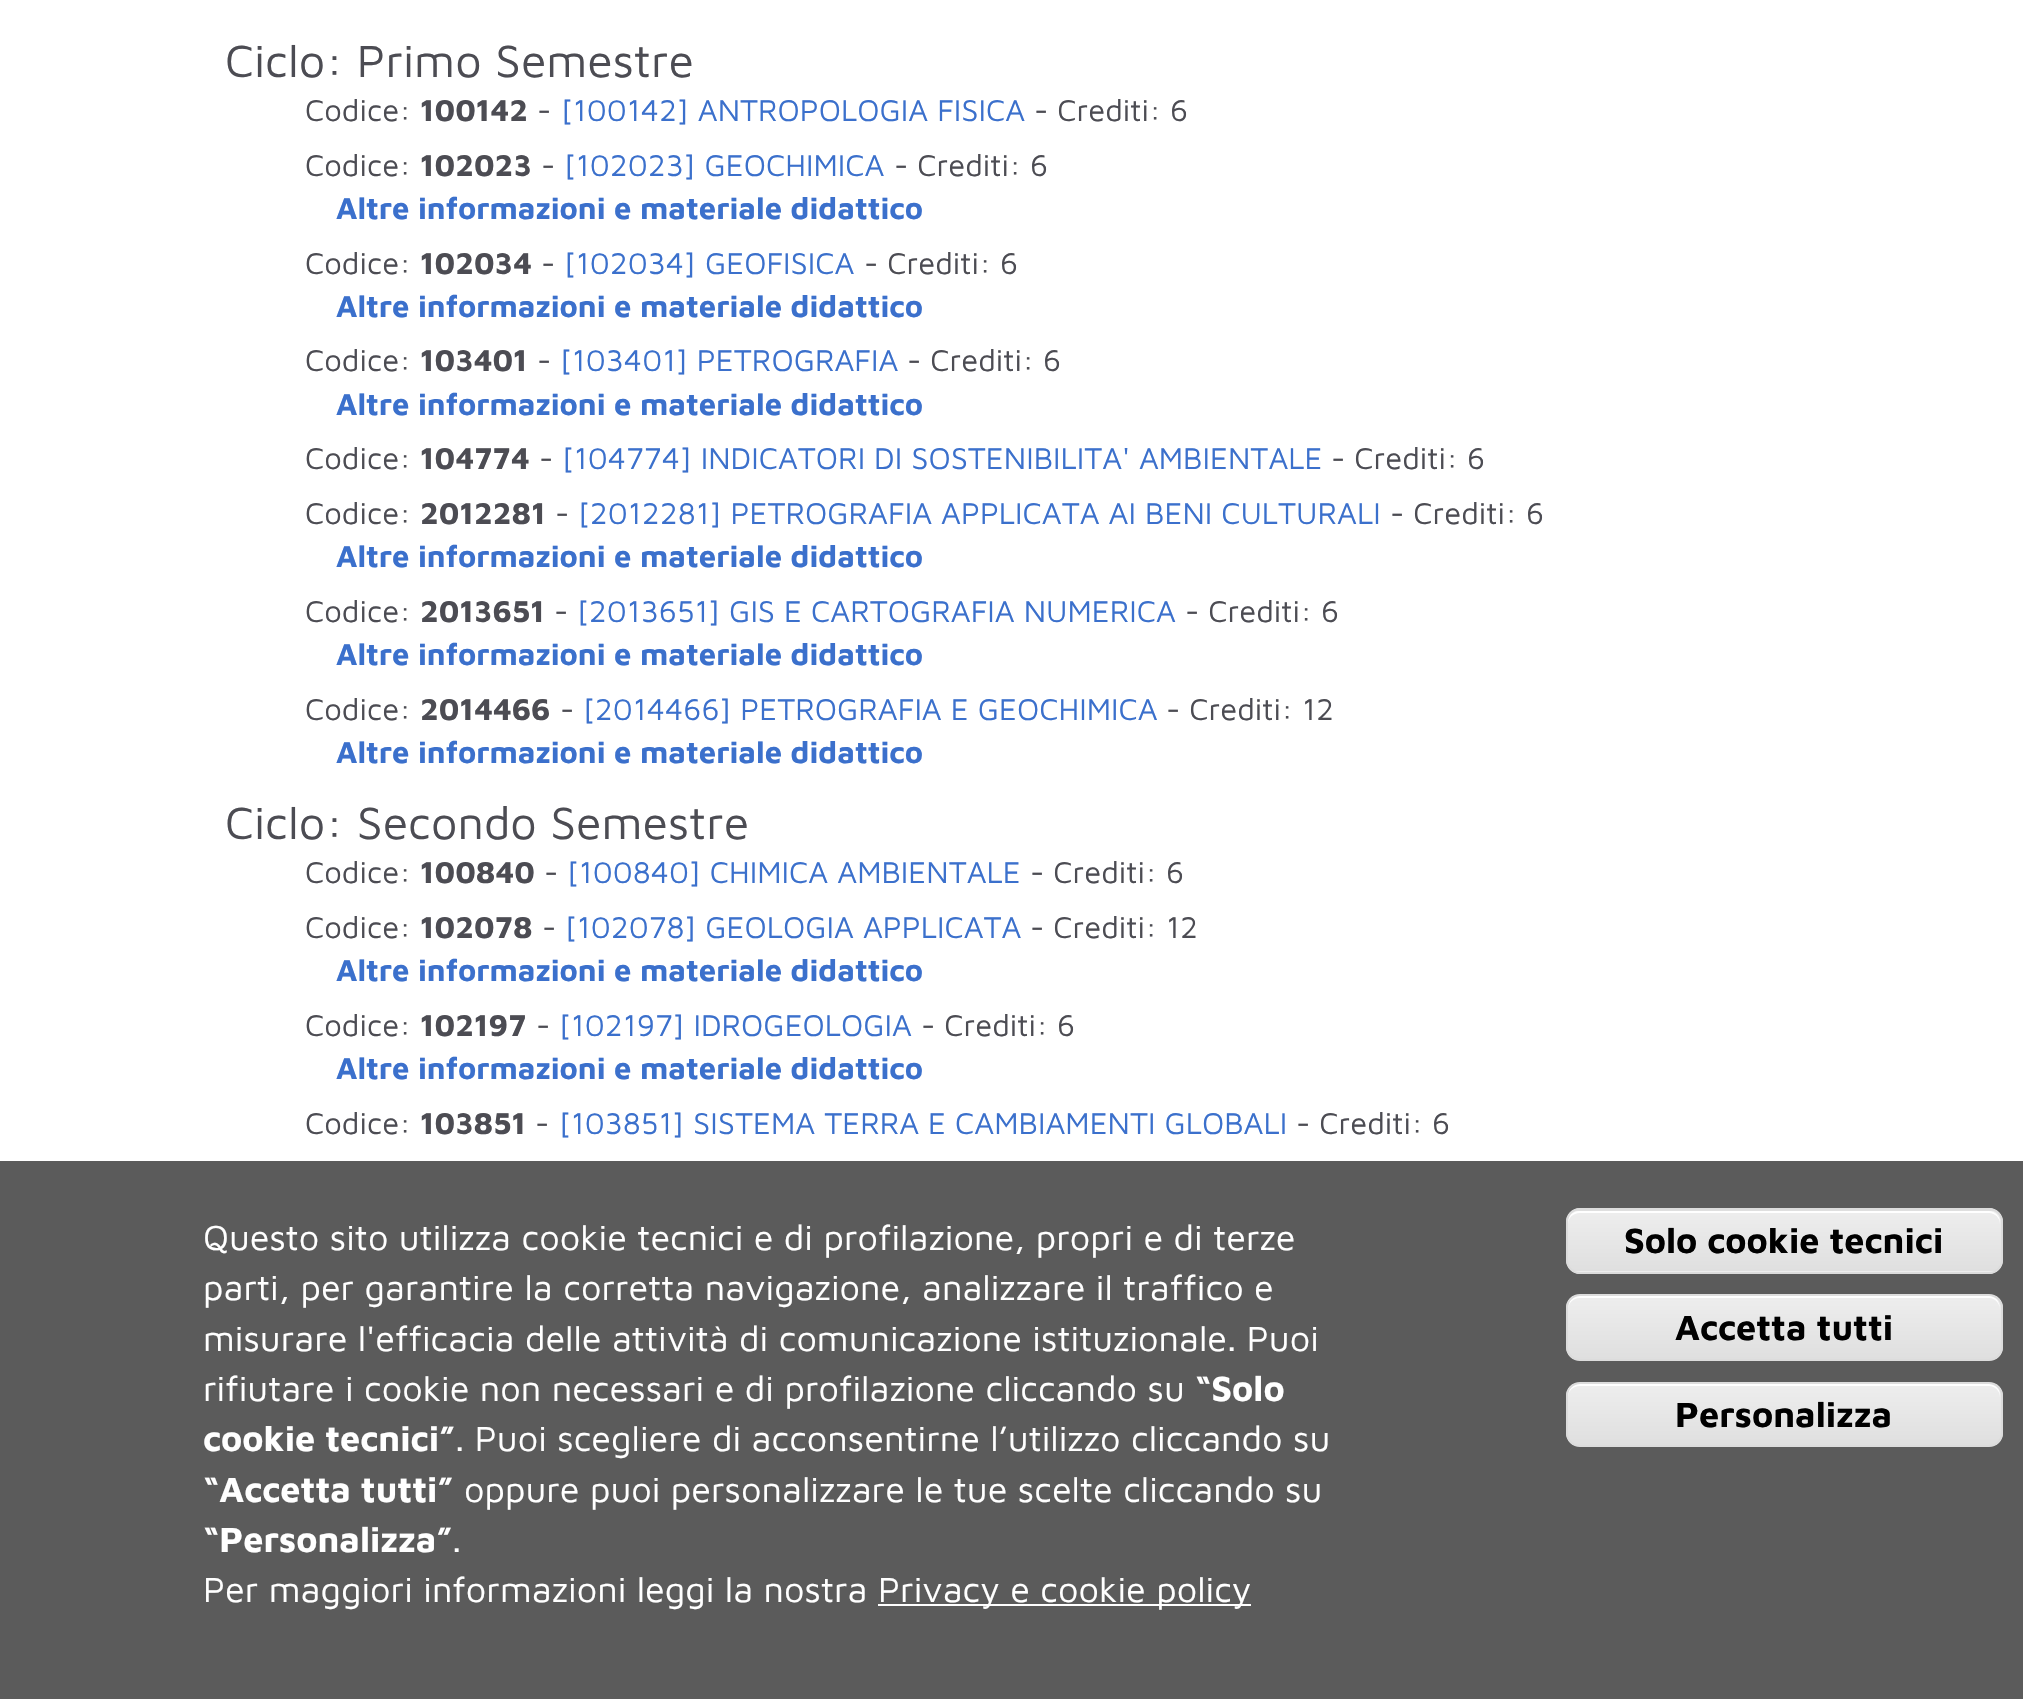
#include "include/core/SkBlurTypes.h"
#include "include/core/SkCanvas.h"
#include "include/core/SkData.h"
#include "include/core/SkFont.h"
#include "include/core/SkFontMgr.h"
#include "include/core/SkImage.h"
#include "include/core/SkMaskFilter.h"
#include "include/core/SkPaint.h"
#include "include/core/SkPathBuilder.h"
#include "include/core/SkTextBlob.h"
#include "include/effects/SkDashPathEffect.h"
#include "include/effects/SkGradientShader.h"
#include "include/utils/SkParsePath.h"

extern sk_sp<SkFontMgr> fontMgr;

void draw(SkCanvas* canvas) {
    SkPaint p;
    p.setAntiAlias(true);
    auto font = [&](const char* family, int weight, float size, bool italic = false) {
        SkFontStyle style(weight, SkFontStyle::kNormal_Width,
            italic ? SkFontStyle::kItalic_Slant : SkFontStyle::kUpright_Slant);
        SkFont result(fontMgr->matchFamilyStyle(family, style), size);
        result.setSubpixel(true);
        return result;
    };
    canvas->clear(0xFFFFFFFF);
    auto font1 = font("Maven Pro", 400, 46.5f);
    p.setColor(0xFF4C4C53);
    canvas->drawString("Ciclo: Primo Semestre", 225, 77, font1, p);
    auto font2 = font("Maven Pro", 400, 30.95f);
    canvas->drawString("Codice:", 305, 121, font2, p);
    auto font3 = font("Maven Pro", 700, 30.95f);
    canvas->drawString("100142", 420, 121, font3, p);
    canvas->drawString("-", 537, 121, font2, p);
    p.setColor(0xFF3B70CC);
    canvas->drawString("[100142] ANTROPOLOGIA FISICA", 561, 121, font2, p);
    p.setColor(0xFF4C4C53);
    canvas->drawString("- Crediti: 6", 1034, 121, font2, p);
    canvas->drawString("Codice:", 305, 176, font2, p);
    canvas->drawString("102023", 420, 176, font3, p);
    canvas->drawString("-", 541, 176, font2, p);
    p.setColor(0xFF3B70CC);
    canvas->drawString("[102023] GEOCHIMICA", 564, 176, font2, p);
    p.setColor(0xFF4C4C53);
    canvas->drawString("- Crediti: 6", 894, 176, font2, p);
    p.setColor(0xFF3B70CC);
    canvas->drawString("Altre informazioni e materiale didattico", 336, 219, font3, p);
    p.setColor(0xFF4C4C53);
    canvas->drawString("Codice:", 305, 274, font2, p);
    canvas->drawString("102034", 420, 274, font3, p);
    canvas->drawString("-", 541, 274, font2, p);
    p.setColor(0xFF3B70CC);
    canvas->drawString("[102034] GEOFISICA", 564, 274, font2, p);
    p.setColor(0xFF4C4C53);
    canvas->drawString("- Crediti: 6", 864, 274, font2, p);
    p.setColor(0xFF3B70CC);
    canvas->drawString("Altre informazioni e materiale didattico", 336, 317, font3, p);
    p.setColor(0xFF4C4C53);
    canvas->drawString("Codice:", 305, 371, font2, p);
    canvas->drawString("103401", 420, 371, font3, p);
    canvas->drawString("-", 537, 371, font2, p);
    p.setColor(0xFF3B70CC);
    canvas->drawString("[103401] PETROGRAFIA", 560, 371, font2, p);
    p.setColor(0xFF4C4C53);
    canvas->drawString("- Crediti: 6", 907, 371, font2, p);
    p.setColor(0xFF3B70CC);
    canvas->drawString("Altre informazioni e materiale didattico", 336, 415, font3, p);
    p.setColor(0xFF4C4C53);
    canvas->drawString("Codice:", 305, 469, font2, p);
    canvas->drawString("104774", 420, 469, font3, p);
    canvas->drawString("-", 539, 469, font2, p);
    p.setColor(0xFF3B70CC);
    canvas->drawString("[104774] INDICATORI DI SOSTENIBILITA' AMBIENTALE", 562, 469, font2, p);
    p.setColor(0xFF4C4C53);
    canvas->drawString("- Crediti: 6", 1331, 469, font2, p);
    canvas->drawString("Codice:", 305, 524, font2, p);
    canvas->drawString("2012281", 420, 524, font3, p);
    canvas->drawString("-", 555, 524, font2, p);
    p.setColor(0xFF3B70CC);
    canvas->drawString("[2012281] PETROGRAFIA APPLICATA AI BENI CULTURALI", 578, 524, font2, p);
    p.setColor(0xFF4C4C53);
    canvas->drawString("- Crediti: 6", 1390, 524, font2, p);
    p.setColor(0xFF3B70CC);
    canvas->drawString("Altre informazioni e materiale didattico", 336, 567, font3, p);
    p.setColor(0xFF4C4C53);
    canvas->drawString("Codice:", 305, 622, font2, p);
    canvas->drawString("2013651", 420, 622, font3, p);
    canvas->drawString("-", 554, 622, font2, p);
    p.setColor(0xFF3B70CC);
    canvas->drawString("[2013651] GIS E CARTOGRAFIA NUMERICA", 577, 622, font2, p);
    p.setColor(0xFF4C4C53);
    canvas->drawString("- Crediti: 6", 1185, 622, font2, p);
    p.setColor(0xFF3B70CC);
    canvas->drawString("Altre informazioni e materiale didattico", 336, 665, font3, p);
    p.setColor(0xFF4C4C53);
    canvas->drawString("Codice:", 305, 720, font2, p);
    canvas->drawString("2014466", 420, 720, font3, p);
    canvas->drawString("-", 560, 720, font2, p);
    p.setColor(0xFF3B70CC);
    canvas->drawString("[2014466] PETROGRAFIA E GEOCHIMICA", 583, 720, font2, p);
    p.setColor(0xFF4C4C53);
    canvas->drawString("- Crediti: 12", 1166, 720, font2, p);
    p.setColor(0xFF3B70CC);
    canvas->drawString("Altre informazioni e materiale didattico", 336, 763, font3, p);
    p.setColor(0xFF4C4C53);
    canvas->drawString("Ciclo: Secondo Semestre", 225, 839, font1, p);
    canvas->drawString("Codice:", 305, 883, font2, p);
    canvas->drawString("100840", 420, 883, font3, p);
    canvas->drawString("-", 544, 883, font2, p);
    p.setColor(0xFF3B70CC);
    canvas->drawString("[100840] CHIMICA AMBIENTALE", 567, 883, font2, p);
    p.setColor(0xFF4C4C53);
    canvas->drawString("- Crediti: 6", 1030, 883, font2, p);
    canvas->drawString("Codice:", 305, 938, font2, p);
    canvas->drawString("102078", 420, 938, font3, p);
    canvas->drawString("-", 542, 938, font2, p);
    p.setColor(0xFF3B70CC);
    canvas->drawString("[102078] GEOLOGIA APPLICATA", 565, 938, font2, p);
    p.setColor(0xFF4C4C53);
    canvas->drawString("- Crediti: 12", 1030, 938, font2, p);
    p.setColor(0xFF3B70CC);
    canvas->drawString("Altre informazioni e materiale didattico", 336, 981, font3, p);
    p.setColor(0xFF4C4C53);
    canvas->drawString("Codice:", 305, 1036, font2, p);
    canvas->drawString("102197", 420, 1036, font3, p);
    canvas->drawString("-", 536, 1036, font2, p);
    p.setColor(0xFF3B70CC);
    canvas->drawString("[102197] IDROGEOLOGIA", 559, 1036, font2, p);
    p.setColor(0xFF4C4C53);
    canvas->drawString("- Crediti: 6", 921, 1036, font2, p);
    p.setColor(0xFF3B70CC);
    canvas->drawString("Altre informazioni e materiale didattico", 336, 1079, font3, p);
    p.setColor(0xFF4C4C53);
    canvas->drawString("Codice:", 305, 1134, font2, p);
    canvas->drawString("103851", 420, 1134, font3, p);
    canvas->drawString("-", 535, 1134, font2, p);
    p.setColor(0xFF3B70CC);
    canvas->drawString("[103851] SISTEMA TERRA E CAMBIAMENTI GLOBALI", 559, 1134, font2, p);
    p.setColor(0xFF4C4C53);
    canvas->drawString("- Crediti: 6", 1296, 1134, font2, p);
    p.setColor(0xFF5B5B5B);
    canvas->drawRect(SkRect::MakeLTRB(0, 1161, 2023, 1699), p);
    auto font4 = font("Maven Pro", 400, 36);
    p.setColor(0xFFFFFFFF);
    {
        const struct { const char* s; float x, y; } items[] = {
            {"Questo sito utilizza cookie tecnici e di profilazione, propri e di terze", 203, 1250},
            {"parti, per garantire la corretta navigazione, analizzare il traffico e", 203, 1300},
            {"misurare l'efficacia delle attività di comunicazione istituzionale. Puoi", 203, 1351},
            {"rifiutare i cookie non necessari e di profilazione cliccando su", 203, 1401},
        };
        for (auto [s, x, y] : items) {
            canvas->drawString(s, x, y, font4, p);
        }
    }
    auto font5 = font("Maven Pro", 700, 36);
    canvas->drawString("“Solo", 1195, 1401, font5, p);
    canvas->drawString("cookie tecnici”", 203, 1451, font5, p);
    canvas->drawString(". Puoi scegliere di acconsentirne l’utilizzo cliccando su", 455, 1451, font4, p);
    canvas->drawString("“Accetta tutti”", 203, 1502, font5, p);
    canvas->drawString("oppure puoi personalizzare le tue scelte cliccando su", 464, 1502, font4, p);
    canvas->drawString("“Personalizza”", 203, 1552, font5, p);
    canvas->drawString(".", 452, 1552, font4, p);
    canvas->drawString("Per maggiori informazioni leggi la nostra", 203, 1602, font4, p);
    canvas->drawRect(SkRect::MakeLTRB(878, 1604, 1251, 1606), p);
    canvas->drawString("Privacy e cookie policy", 878, 1602, font4, p);
    canvas->save();
    canvas->clipPath(SkPathBuilder().moveTo(1580, 1208).lineTo(1989, 1208).cubicTo(1996.5f, 1208, 2003, 1214.5f, 2003, 1222).lineTo(2003, 1260).cubicTo(2003, 1267.5f, 1996.5f, 1274, 1989, 1274).lineTo(1580, 1274).cubicTo(1572.5f, 1274, 1566, 1267.5f, 1566, 1260).lineTo(1566, 1222).cubicTo(1566, 1214.5f, 1572.5f, 1208, 1580, 1208).close().detach(), true);
    {
        const SkColor colors[] = {0xFFEDEDED, 0xFFDFDFDF};
        const float stops[] = {0.05f, 1};
        const SkPoint ends[] = {{1784, 1150}, {1784, 1211}};
        p.setShader(SkGradientShader::MakeLinear(ends, colors, stops, 2, SkTileMode::kClamp));
        p.setAlpha(255);
    }
    canvas->drawRect(SkRect::MakeLTRB(1566, 1208, 2003, 1211), p);
    {
        const SkColor colors[] = {0xFFEDEDED, 0xFFDFDFDF};
        const float stops[] = {0.05f, 1};
        const SkPoint ends[] = {{1784, 1211}, {1784, 1271}};
        p.setShader(SkGradientShader::MakeLinear(ends, colors, stops, 2, SkTileMode::kClamp));
        p.setAlpha(255);
    }
    canvas->drawRect(SkRect::MakeLTRB(1566, 1211, 2003, 1271), p);
    {
        const SkColor colors[] = {0xFFEDEDED, 0xFFDFDFDF};
        const float stops[] = {0.05f, 1};
        const SkPoint ends[] = {{1784, 1271}, {1784, 1332}};
        p.setShader(SkGradientShader::MakeLinear(ends, colors, stops, 2, SkTileMode::kClamp));
        p.setAlpha(255);
    }
    canvas->drawRect(SkRect::MakeLTRB(1566, 1271, 2003, 1274), p);
    canvas->restore();
    p.setShader(nullptr);
    p.setColor(0xFFFFFFFF);
    canvas->drawPath(SkPathBuilder().moveTo(1580, 1213).lineTo(1989, 1213).cubicTo(1995, 1213, 2000, 1218, 2000, 1224).lineTo(2000, 1222).cubicTo(2000, 1216, 1995, 1211, 1989, 1211).lineTo(1579, 1211).cubicTo(1573, 1211, 1568, 1216, 1568, 1222).lineTo(1568, 1224).cubicTo(1568, 1218, 1573, 1213, 1580, 1213).close().detach(), p);
    p.setStyle(SkPaint::kStroke_Style);
    p.setStrokeWidth(2);
    p.setColor(0xFFDCDCDC);
    canvas->drawRoundRect(SkRect::MakeLTRB(1567, 1209, 2002, 1273), 13, 13, p);
    p.setStyle(SkPaint::kFill_Style);
    p.setColor(0xFF000000);
    canvas->drawString("Solo cookie tecnici", 1624, 1253, font5, p);
    canvas->save();
    canvas->clipPath(SkPathBuilder().moveTo(1580, 1294).lineTo(1989, 1294).cubicTo(1996.5f, 1294, 2003, 1300.5f, 2003, 1308).lineTo(2003, 1347).cubicTo(2003, 1354.5f, 1996.5f, 1361, 1989, 1361).lineTo(1580, 1361).cubicTo(1572.5f, 1361, 1566, 1354.5f, 1566, 1347).lineTo(1566, 1308).cubicTo(1566, 1300.5f, 1572.5f, 1294, 1580, 1294).close().detach(), true);
    {
        const SkColor colors[] = {0xFFEDEDED, 0xFFDFDFDF};
        const float stops[] = {0.05f, 1};
        const SkPoint ends[] = {{1784, 1296}, {1784, 1359}};
        p.setShader(SkGradientShader::MakeLinear(ends, colors, stops, 2, SkTileMode::kClamp));
        p.setAlpha(255);
    }
    canvas->drawRect(SkRect::MakeLTRB(1566, 1296, 2003, 1359), p);
    canvas->restore();
    p.setShader(nullptr);
    p.setColor(0xFFFFFFFF);
    canvas->drawPath(SkPathBuilder().moveTo(1580, 1298).lineTo(1989, 1298).cubicTo(1995, 1298, 2000, 1303, 2000, 1310).cubicTo(2000, 1304, 1998, 1298, 1991, 1296).lineTo(1579, 1296).cubicTo(1571, 1296, 1568, 1303, 1568, 1310).cubicTo(1568, 1303, 1573, 1298, 1580, 1298).close().detach(), p);
    p.setStyle(SkPaint::kStroke_Style);
    p.setColor(0xFFDCDCDC);
    canvas->drawRoundRect(SkRect::MakeLTRB(1567, 1295, 2002, 1360), 13, 13, p);
    p.setStyle(SkPaint::kFill_Style);
    p.setColor(0xFF000000);
    canvas->drawString("Accetta tutti", 1675, 1340, font5, p);
    canvas->save();
    canvas->clipPath(SkPathBuilder().moveTo(1580, 1382).lineTo(1989, 1382).cubicTo(1996.5f, 1382, 2003, 1388.5f, 2003, 1396).lineTo(2003, 1433).cubicTo(2003, 1440.5f, 1996.5f, 1447, 1989, 1447).lineTo(1580, 1447).cubicTo(1572.5f, 1447, 1566, 1440.5f, 1566, 1433).lineTo(1566, 1396).cubicTo(1566, 1388.5f, 1572.5f, 1382, 1580, 1382).close().detach(), true);
    {
        const SkColor colors[] = {0xFFEDEDED, 0xFFDFDFDF};
        const float stops[] = {0.05f, 1};
        const SkPoint ends[] = {{1784, 1384}, {1784, 1445}};
        p.setShader(SkGradientShader::MakeLinear(ends, colors, stops, 2, SkTileMode::kClamp));
        p.setAlpha(255);
    }
    canvas->drawRect(SkRect::MakeLTRB(1566, 1384, 2003, 1445), p);
    canvas->restore();
    p.setShader(nullptr);
    p.setColor(0xFFFFFFFF);
    canvas->drawPath(SkPathBuilder().moveTo(1580, 1386).lineTo(1989, 1386).cubicTo(1995, 1386, 2000, 1391, 2000, 1397).lineTo(2000, 1395).cubicTo(2000, 1389, 1995, 1384, 1989, 1384).lineTo(1579, 1384).cubicTo(1573, 1384, 1568, 1389, 1568, 1395).lineTo(1568, 1397).cubicTo(1568, 1391, 1573, 1386, 1580, 1386).close().detach(), p);
    p.setStyle(SkPaint::kStroke_Style);
    p.setColor(0xFFDCDCDC);
    canvas->drawRoundRect(SkRect::MakeLTRB(1567, 1383, 2002, 1446), 13, 13, p);
    p.setStyle(SkPaint::kFill_Style);
    p.setColor(0xFF000000);
    canvas->drawString("Personalizza", 1675, 1427, font5, p);
}
